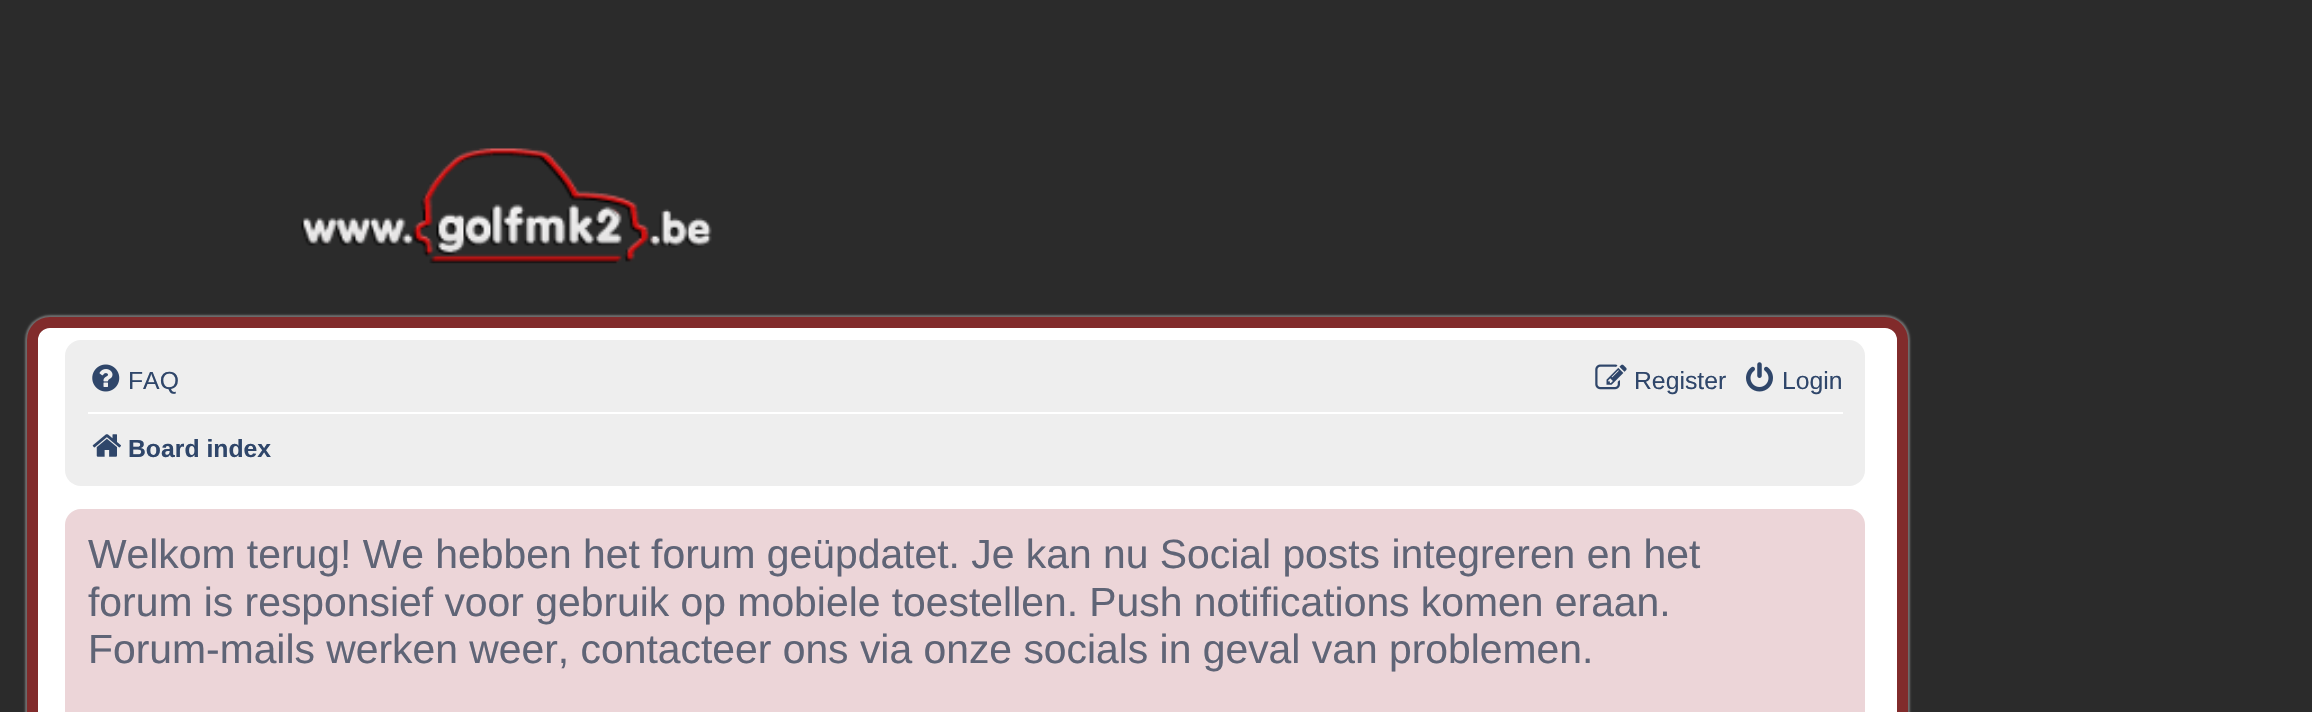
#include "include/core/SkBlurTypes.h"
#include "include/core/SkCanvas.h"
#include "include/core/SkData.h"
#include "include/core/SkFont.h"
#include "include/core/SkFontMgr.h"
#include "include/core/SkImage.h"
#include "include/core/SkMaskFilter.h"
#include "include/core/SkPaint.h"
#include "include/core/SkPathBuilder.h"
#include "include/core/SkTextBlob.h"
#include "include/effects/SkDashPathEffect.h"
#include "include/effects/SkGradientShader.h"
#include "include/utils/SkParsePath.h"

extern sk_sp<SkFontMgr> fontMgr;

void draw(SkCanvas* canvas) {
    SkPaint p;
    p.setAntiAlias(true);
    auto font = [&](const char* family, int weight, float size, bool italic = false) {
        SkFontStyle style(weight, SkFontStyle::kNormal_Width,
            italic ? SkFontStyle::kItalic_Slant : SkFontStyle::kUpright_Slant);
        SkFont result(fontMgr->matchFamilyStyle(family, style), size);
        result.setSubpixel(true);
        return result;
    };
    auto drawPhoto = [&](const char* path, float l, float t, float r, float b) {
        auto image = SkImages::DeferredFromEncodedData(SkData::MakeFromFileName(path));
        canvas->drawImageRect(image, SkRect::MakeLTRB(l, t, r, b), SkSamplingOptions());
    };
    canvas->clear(0xFF2B2B2B);
    drawPhoto("media/1.png", 301, 148, 712, 264);
    p.setColor(0xFF6E6E6E);
    p.setMaskFilter(SkMaskFilter::MakeBlur(kNormal_SkBlurStyle, 1));
    canvas->drawRoundRect(SkRect::MakeLTRB(25, 315, 1910, 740), 25, 25, p);
    p.setMaskFilter(nullptr);
    p.setColor(0xFFFFFFFF);
    canvas->drawRoundRect(SkRect::MakeLTRB(32.5f, 322.5f, 1902.5f, 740.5f), 17.5f, 17.5f, p);
    p.setStyle(SkPaint::kStroke_Style);
    p.setStrokeWidth(11);
    p.setColor(0xFF812B2B);
    canvas->drawRoundRect(SkRect::MakeLTRB(32.5f, 322.5f, 1902.5f, 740.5f), 17.5f, 17.5f, p);
    p.setStyle(SkPaint::kFill_Style);
    p.setColor(0xFFEEEEEE);
    canvas->drawRoundRect(SkRect::MakeLTRB(65, 340, 1865, 486), 16, 16, p);
    drawPhoto("media/2.png", 92, 364, 120, 392);
    auto font1 = font("Liberation Sans", 400, 24.75f);
    p.setColor(0xFF2F466A);
    canvas->drawString("FAQ", 128, 389, font1, p);
    drawPhoto("media/3.png", 1595, 364, 1627, 390);
    canvas->drawString("Register", 1634, 389, font1, p);
    drawPhoto("media/4.png", 1746, 362, 1773, 392);
    canvas->drawString("Login", 1782, 389, font1, p);
    p.setColor(0xFFFFFFFF);
    canvas->drawRect(SkRect::MakeLTRB(88, 412, 1843, 414), p);
    drawPhoto("media/5.png", 92, 434, 121, 457);
    auto font2 = font("Liberation Sans", 700, 24.75f);
    p.setColor(0xFF2F466A);
    canvas->drawString("Board index", 128, 457, font2, p);
    p.setColor(0xFFECD5D8);
    canvas->drawRoundRect(SkRect::MakeLTRB(65, 509, 1865, 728), 16, 16, p);
    auto font3 = font("Liberation Sans", 400, 40.85f);
    p.setColor(0xFF5F6476);
    {
        const struct { const char* s; float x, y; } items[] = {
            {"Welkom terug! We hebben het forum geüpdatet. Je kan nu Social posts integreren en het", 88, 568},
            {"forum is responsief voor gebruik op mobiele toestellen. Push notifications komen eraan.", 88, 616},
            {"Forum-mails werken weer, contacteer ons via onze socials in geval van problemen.", 88, 663},
        };
        for (auto [s, x, y] : items) {
            canvas->drawString(s, x, y, font3, p);
        }
    }
}
